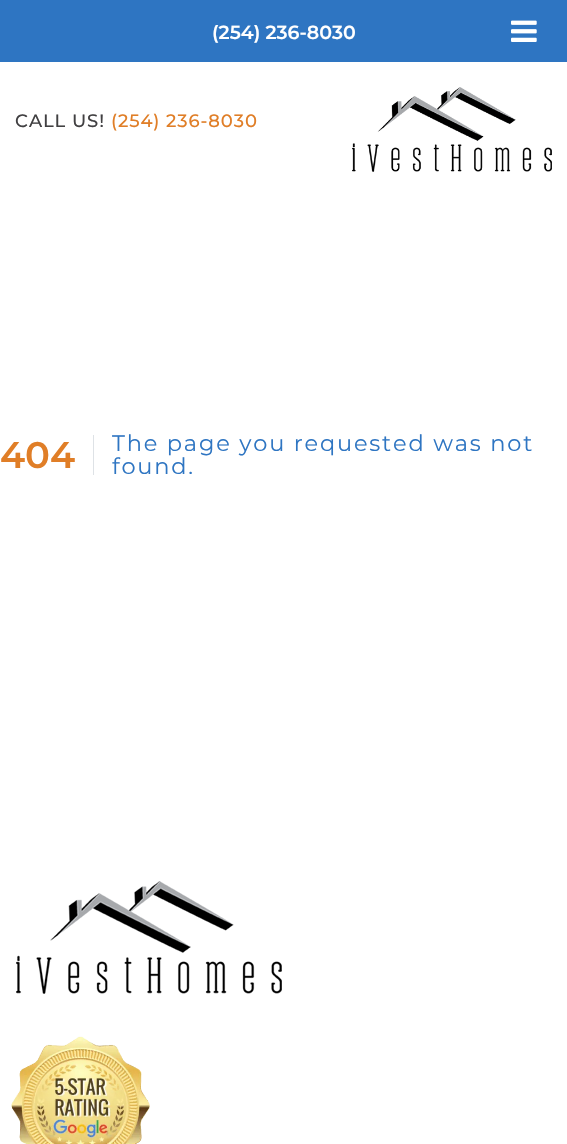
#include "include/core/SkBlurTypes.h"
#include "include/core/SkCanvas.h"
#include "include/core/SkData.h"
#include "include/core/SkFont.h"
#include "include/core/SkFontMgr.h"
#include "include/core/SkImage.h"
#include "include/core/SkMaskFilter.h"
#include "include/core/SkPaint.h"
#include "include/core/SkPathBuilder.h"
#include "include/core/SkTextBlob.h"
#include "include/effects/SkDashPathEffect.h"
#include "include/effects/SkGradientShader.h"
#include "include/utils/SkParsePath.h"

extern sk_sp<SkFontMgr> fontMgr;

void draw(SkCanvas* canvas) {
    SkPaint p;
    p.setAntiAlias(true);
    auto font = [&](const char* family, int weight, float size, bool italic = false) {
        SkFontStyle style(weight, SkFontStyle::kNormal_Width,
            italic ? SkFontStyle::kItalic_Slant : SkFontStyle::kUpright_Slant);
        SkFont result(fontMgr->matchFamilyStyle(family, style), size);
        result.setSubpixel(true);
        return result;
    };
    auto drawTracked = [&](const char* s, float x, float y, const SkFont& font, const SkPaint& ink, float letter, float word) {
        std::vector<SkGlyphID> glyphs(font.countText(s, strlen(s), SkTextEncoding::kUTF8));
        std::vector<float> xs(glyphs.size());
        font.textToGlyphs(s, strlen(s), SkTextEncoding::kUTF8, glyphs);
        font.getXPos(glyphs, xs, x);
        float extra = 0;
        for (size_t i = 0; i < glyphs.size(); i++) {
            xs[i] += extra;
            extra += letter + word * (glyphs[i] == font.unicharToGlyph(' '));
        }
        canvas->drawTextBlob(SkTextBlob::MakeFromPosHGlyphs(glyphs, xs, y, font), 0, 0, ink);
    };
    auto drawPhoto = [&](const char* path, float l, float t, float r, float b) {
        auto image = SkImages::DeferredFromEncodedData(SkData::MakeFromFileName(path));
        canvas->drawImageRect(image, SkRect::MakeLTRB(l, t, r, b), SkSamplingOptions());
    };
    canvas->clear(0xFFFFFFFF);
    p.setColor(0xFF2E75C2);
    canvas->drawRect(SkRect::MakeLTRB(0, 0, 567, 62), p);
    auto font1 = font("Montserrat", 100, 19);
    p.setColor(0xFFFFFFFF);
    canvas->drawString("(254) 236-8030", 212, 39, font1, p);
    drawPhoto("media/1.png", 511, 20, 537, 42);
    auto font2 = font("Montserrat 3", 100, 18);
    p.setColor(0xFF414042);
    drawTracked("CALL US!", 15, 127, font2, p, 0.9f, 0);
    p.setColor(0xFFE07E27);
    drawTracked("(254) 236-8030", 111, 127, font2, p, 0.9f, 0);
    drawPhoto("media/2.png", 352, 87, 552, 172);
    p.setColor(0xFFDEE2E6);
    canvas->drawRect(SkRect::MakeLTRB(93, 435, 94, 475), p);
    auto font3 = font("Montserrat", 100, 37);
    p.setColor(0xFFE07E27);
    canvas->drawString("404", 0, 468, font3, p);
    auto font4 = font("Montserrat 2", 100, 22.5f);
    p.setColor(0xFF2E75C2);
    drawTracked("The page you requested was not", 112, 451, font4, p, 1.8f, 0);
    drawTracked("found.", 112, 474, font4, p, 1.8f, 0);
    drawPhoto("media/3.png", 16, 881, 282, 994);
    drawPhoto("media/4.png", 11, 1036, 150, 1144);
}
